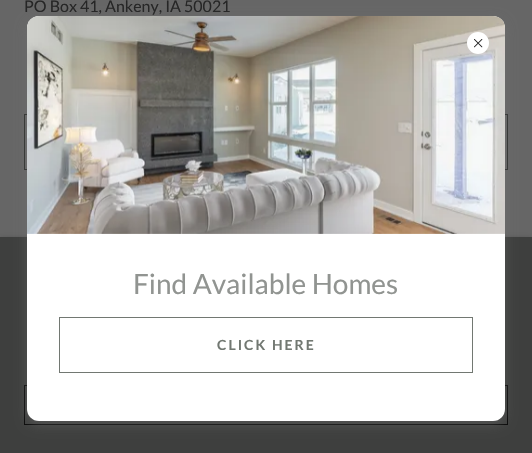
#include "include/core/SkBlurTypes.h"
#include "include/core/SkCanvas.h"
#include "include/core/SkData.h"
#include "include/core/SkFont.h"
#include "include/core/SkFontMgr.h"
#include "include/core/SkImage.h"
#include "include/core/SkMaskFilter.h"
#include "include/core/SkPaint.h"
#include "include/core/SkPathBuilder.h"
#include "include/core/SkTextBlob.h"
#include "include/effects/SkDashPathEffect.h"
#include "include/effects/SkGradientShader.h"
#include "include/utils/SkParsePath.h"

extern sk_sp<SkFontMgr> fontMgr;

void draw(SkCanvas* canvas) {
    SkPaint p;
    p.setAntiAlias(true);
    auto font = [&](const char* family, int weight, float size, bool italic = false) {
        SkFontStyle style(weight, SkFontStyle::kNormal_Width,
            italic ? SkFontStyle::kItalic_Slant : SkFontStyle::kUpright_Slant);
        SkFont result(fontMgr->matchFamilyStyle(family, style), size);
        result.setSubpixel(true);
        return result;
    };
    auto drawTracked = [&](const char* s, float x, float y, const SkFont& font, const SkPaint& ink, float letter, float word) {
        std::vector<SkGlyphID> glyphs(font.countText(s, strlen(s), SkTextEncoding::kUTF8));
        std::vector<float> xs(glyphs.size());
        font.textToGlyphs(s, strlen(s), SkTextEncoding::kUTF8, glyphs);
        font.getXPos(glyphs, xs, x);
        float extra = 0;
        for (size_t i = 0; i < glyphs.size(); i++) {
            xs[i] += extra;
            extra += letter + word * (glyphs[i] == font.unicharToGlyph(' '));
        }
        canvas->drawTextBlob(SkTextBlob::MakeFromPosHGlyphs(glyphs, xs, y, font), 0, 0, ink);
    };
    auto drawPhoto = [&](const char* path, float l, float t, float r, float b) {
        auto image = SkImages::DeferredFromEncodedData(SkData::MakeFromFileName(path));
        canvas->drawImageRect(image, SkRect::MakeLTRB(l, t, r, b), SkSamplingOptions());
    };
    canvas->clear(0xFF666666);
    auto font1 = font("Lato", 400, 16);
    p.setColor(0xFF262626);
    canvas->drawString("PO Box 41, Ankeny, IA 50021", 24, 12, font1, p);
    p.setStyle(SkPaint::kStroke_Style);
    p.setStrokeWidth(1);
    p.setColor(0xFF2E302E);
    canvas->drawRect(SkRect::MakeLTRB(24.5f, 114.5f, 507.5f, 169.5f), p);
    p.setStyle(SkPaint::kFill_Style);
    p.setColor(0x4D000000);
    p.setMaskFilter(SkMaskFilter::MakeBlur(kNormal_SkBlurStyle, 3));
    canvas->drawRect(SkRect::MakeLTRB(0, 239, 532, 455), p);
    p.setMaskFilter(nullptr);
    p.setColor(0xFF3E3F3E);
    canvas->drawRect(SkRect::MakeLTRB(0, 237, 532, 453), p);
    p.setStyle(SkPaint::kStroke_Style);
    p.setColor(0xFF090909);
    canvas->drawRect(SkRect::MakeLTRB(24.5f, 385.5f, 507.5f, 424.5f), p);
    p.setStyle(SkPaint::kFill_Style);
    p.setColor(0x66757575);
    p.setMaskFilter(SkMaskFilter::MakeBlur(kNormal_SkBlurStyle, 6));
    canvas->drawRoundRect(SkRect::MakeLTRB(27, 20, 505, 425), 12, 12, p);
    p.setMaskFilter(nullptr);
    p.setColor(0xFFFFFFFF);
    canvas->drawRoundRect(SkRect::MakeLTRB(27, 16, 505, 421), 12, 12, p);
    drawPhoto("media/2.png", 27, 16, 505, 234);
    canvas->drawCircle(478, 43, 11, p);
    drawPhoto("media/1.png", 474, 39, 483, 48);
    auto font2 = font("Lato", 400, 28);
    p.setColor(0xFF919491);
    canvas->drawString("Find Available Homes", 133, 294, font2, p);
    p.setStyle(SkPaint::kStroke_Style);
    p.setColor(0xFF727872);
    canvas->drawRect(SkRect::MakeLTRB(59.5f, 317.5f, 472.5f, 372.5f), p);
    auto font3 = font("Lato", 700, 14);
    p.setStyle(SkPaint::kFill_Style);
    drawTracked("CLICK HERE", 217, 350, font3, p, 2, 0);
}
